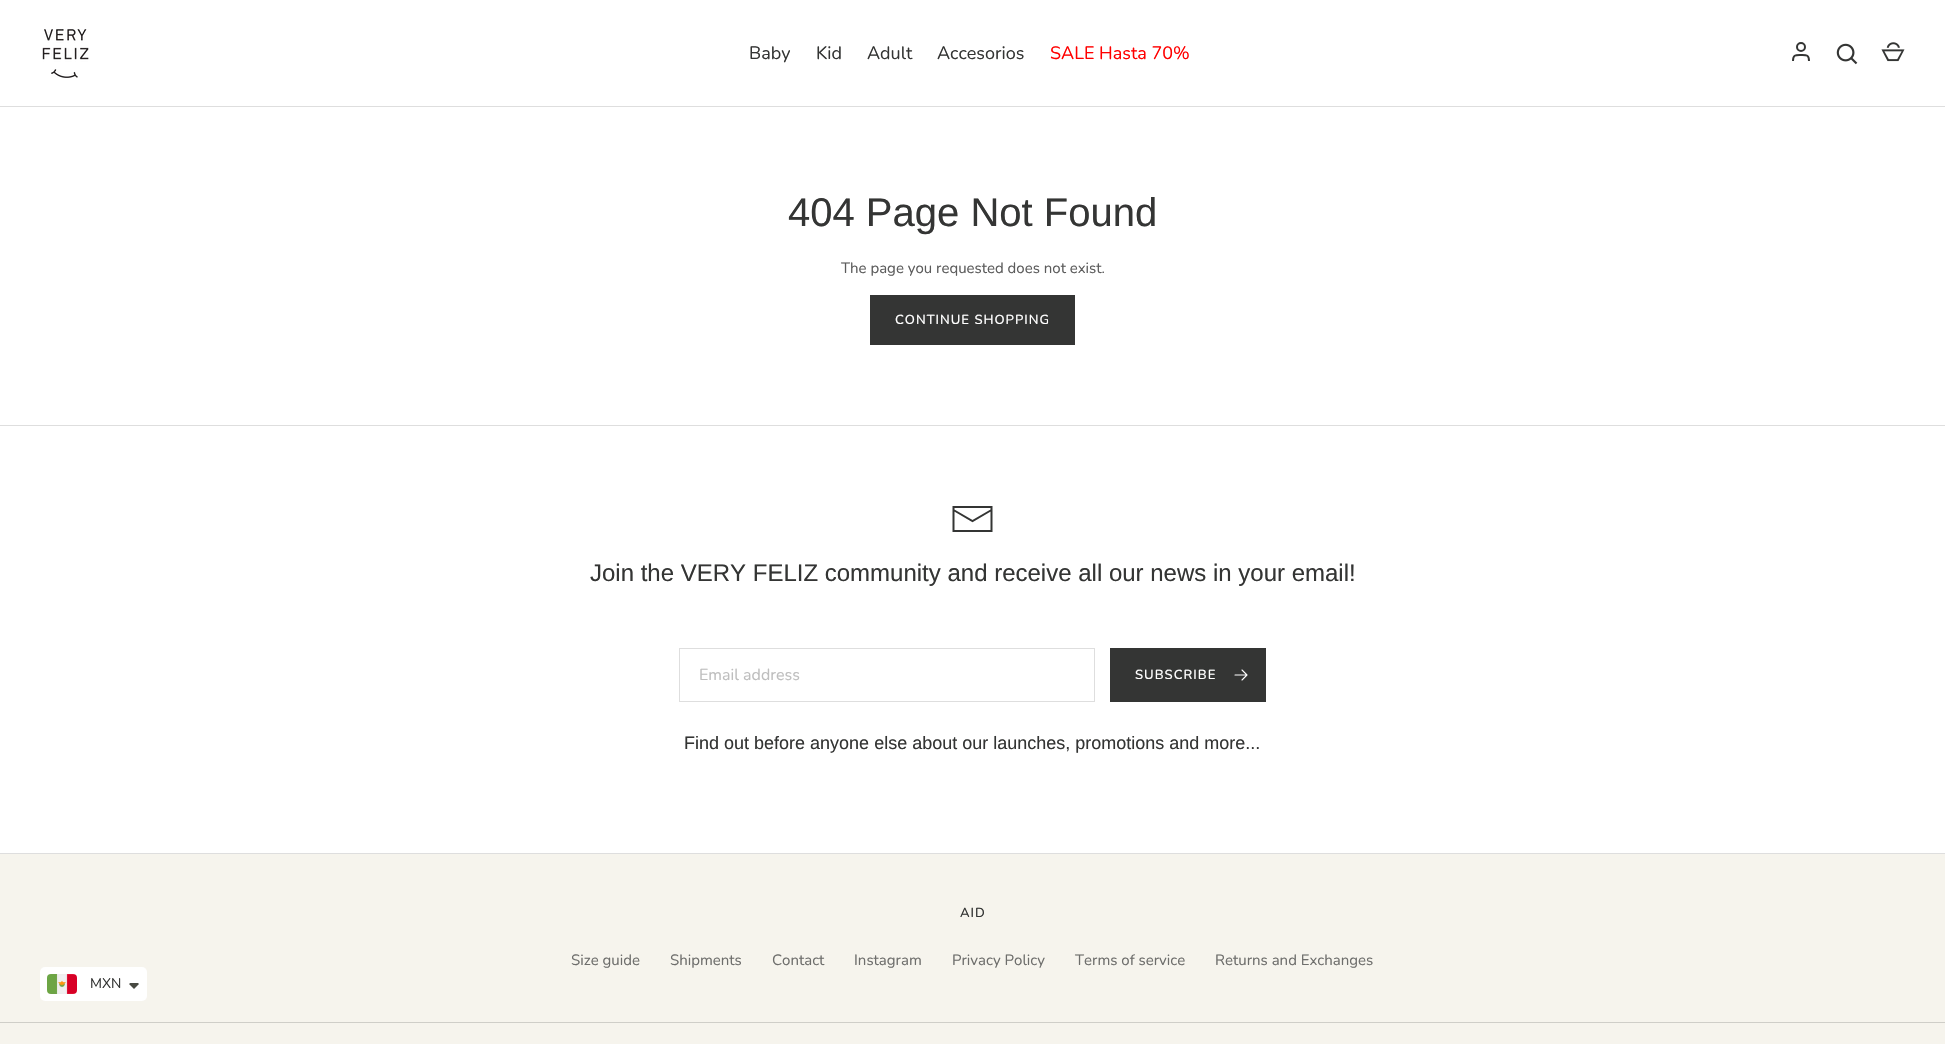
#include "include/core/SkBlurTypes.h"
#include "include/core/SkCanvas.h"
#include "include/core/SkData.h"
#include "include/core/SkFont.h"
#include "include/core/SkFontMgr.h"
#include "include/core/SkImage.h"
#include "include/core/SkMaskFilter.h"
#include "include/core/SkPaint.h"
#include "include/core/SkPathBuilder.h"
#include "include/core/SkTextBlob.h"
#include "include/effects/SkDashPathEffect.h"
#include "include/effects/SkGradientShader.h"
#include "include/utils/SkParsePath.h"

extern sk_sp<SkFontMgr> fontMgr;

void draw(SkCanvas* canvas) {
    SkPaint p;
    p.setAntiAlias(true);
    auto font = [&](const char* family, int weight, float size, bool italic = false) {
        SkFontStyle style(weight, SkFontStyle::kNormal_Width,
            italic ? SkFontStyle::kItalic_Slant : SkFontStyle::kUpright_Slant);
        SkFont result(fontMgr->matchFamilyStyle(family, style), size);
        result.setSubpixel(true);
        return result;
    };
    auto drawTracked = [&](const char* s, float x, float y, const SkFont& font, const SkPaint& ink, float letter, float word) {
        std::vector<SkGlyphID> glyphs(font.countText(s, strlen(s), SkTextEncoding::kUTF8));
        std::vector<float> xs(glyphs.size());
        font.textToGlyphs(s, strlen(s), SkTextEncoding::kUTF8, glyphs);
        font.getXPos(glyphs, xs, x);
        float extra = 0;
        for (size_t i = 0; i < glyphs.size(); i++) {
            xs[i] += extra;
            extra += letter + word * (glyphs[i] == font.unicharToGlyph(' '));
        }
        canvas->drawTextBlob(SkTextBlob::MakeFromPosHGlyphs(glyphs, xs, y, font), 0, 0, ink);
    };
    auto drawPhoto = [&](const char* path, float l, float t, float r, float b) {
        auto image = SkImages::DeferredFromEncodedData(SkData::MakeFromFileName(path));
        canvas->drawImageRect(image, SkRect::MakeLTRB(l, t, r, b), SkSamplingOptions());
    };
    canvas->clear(0xFFFFFFFF);
    drawPhoto("media/1.png", 42, 29, 89, 78);
    auto font1 = font("Nunito", 400, 18);
    p.setColor(0xFF343534);
    {
        const struct { const char* s; float x, y; } items[] = {
            {"Baby", 749, 59},
            {"Kid", 816, 59},
            {"Adult", 867, 59},
            {"Accesorios", 937, 59},
        };
        for (auto [s, x, y] : items) {
            canvas->drawString(s, x, y, font1, p);
        }
    }
    p.setColor(0xFFFF0000);
    canvas->drawString("SALE Hasta 70%", 1050, 59, font1, p);
    p.setStyle(SkPaint::kStroke_Style);
    p.setStrokeWidth(2);
    p.setColor(0xFF343534);
    canvas->drawCircle(1801, 47, 4, p);
    canvas->drawPath(SkPathBuilder().moveTo(1809, 61).cubicTo(1809, 54.5f, 1806.5f, 55, 1801, 55).cubicTo(1795.5f, 55, 1793, 54.5f, 1793, 61).detach(), p);
    drawPhoto("media/2.png", 1836, 43, 1858, 65);
    drawPhoto("media/3.png", 1881, 42, 1905, 62);
    p.setStyle(SkPaint::kFill_Style);
    p.setColor(0xFFDEDEDE);
    canvas->drawRect(SkRect::MakeLTRB(0, 106, 1945, 107), p);
    auto font2 = font("Arimo", 400, 40);
    p.setColor(0xFF343534);
    canvas->drawString("404 Page Not Found", 788, 226, font2, p);
    auto font3 = font("Nunito", 400, 15);
    p.setColor(0xFF5C5C5C);
    canvas->drawString("The page you requested does not exist.", 841, 273, font3, p);
    p.setColor(0xFF343534);
    canvas->drawRect(SkRect::MakeLTRB(870, 295, 1075, 345), p);
    auto font4 = font("Nunito", 500, 13.1f);
    p.setColor(0xFFFFFFFF);
    drawTracked("CONTINUE SHOPPING", 895, 324, font4, p, 1, 0);
    {
        const struct { float l, t, r, b; SkColor color; } items[] = {
            {0, 854, 1945, 1044, 0xFFF6F4ED},
            {0, 425, 1945, 426, 0xFFDEDEDE},
            {0, 853, 1945, 854, 0xFFDEDEDE},
        };
        for (auto [l, t, r, b, color] : items) {
            p.setColor(color);
            canvas->drawRect(SkRect::MakeLTRB(l, t, r, b), p);
        }
    }
    p.setStyle(SkPaint::kStroke_Style);
    p.setColor(0xFF343534);
    canvas->drawPath(SkPathBuilder().moveTo(953.5f, 507).lineTo(953.5f, 531).lineTo(991.5f, 531).lineTo(991.5f, 507).close().moveTo(953.5f, 510).lineTo(972.5f, 521).lineTo(991.5f, 510).detach(), p);
    auto font5 = font("Arimo", 400, 24);
    p.setStyle(SkPaint::kFill_Style);
    canvas->drawString("Join the VERY FELIZ community and receive all our news in your email!", 590, 581, font5, p);
    p.setStyle(SkPaint::kStroke_Style);
    p.setStrokeWidth(1);
    p.setColor(0xFFDEDEDE);
    canvas->drawRect(SkRect::MakeLTRB(679.5f, 648.5f, 1094.5f, 701.5f), p);
    auto font6 = font("Nunito", 400, 16);
    p.setStyle(SkPaint::kFill_Style);
    p.setColor(0xFFBEBEBE);
    canvas->drawString("Email address", 699, 680, font6, p);
    p.setColor(0xFF343534);
    canvas->drawRect(SkRect::MakeLTRB(1110, 648, 1266, 702), p);
    p.setColor(0xFFFFFFFF);
    drawTracked("SUBSCRIBE", 1135, 679, font4, p, 1, 0);
    p.setStyle(SkPaint::kStroke_Style);
    p.setStrokeWidth(1.1f);
    p.setStrokeCap(SkPaint::kRound_Cap);
    p.setStrokeJoin(SkPaint::kRound_Join);
    canvas->drawPath(SkPathBuilder().moveTo(1235, 675).lineTo(1247, 675).moveTo(1247, 675).lineTo(1242, 670).moveTo(1247, 675).lineTo(1242, 680).detach(), p);
    auto font7 = font("Arimo", 400, 18);
    p.setStyle(SkPaint::kFill_Style);
    p.setColor(0xFF343534);
    canvas->drawString("Find out before anyone else about our launches, promotions and more...", 684, 749, font7, p);
    drawTracked("AID", 960, 917, font4, p, 1, 0);
    p.setColor(0xFF6E6E6C);
    {
        const struct { const char* s; float x, y; } items[] = {
            {"Size guide", 571, 965},
            {"Shipments", 670, 965},
            {"Contact", 772, 965},
            {"Instagram", 854, 965},
            {"Privacy Policy", 952, 965},
            {"Terms of service", 1075, 965},
            {"Returns and Exchanges", 1215, 965},
        };
        for (auto [s, x, y] : items) {
            canvas->drawString(s, x, y, font3, p);
        }
    }
    p.setColor(0xFFCFCEC8);
    canvas->drawRect(SkRect::MakeLTRB(0, 1022, 1945, 1023), p);
    p.setColor(0xFFFFFFFF);
    canvas->drawRoundRect(SkRect::MakeLTRB(40, 967, 147, 1001), 5, 5, p);
    drawPhoto("media/4.png", 47, 974, 77, 994);
    auto font8 = font("Nunito", 400, 14);
    p.setColor(0xFF343534);
    canvas->drawString("MXN", 90, 988, font8, p);
    p.setColor(0xFF474942);
    canvas->drawPath(SkPathBuilder().moveTo(131, 983).cubicTo(130, 983, 129.5f, 983.5f, 129, 984).lineTo(134, 989).lineTo(139, 984).lineTo(138, 983).close().detach(), p);
}
